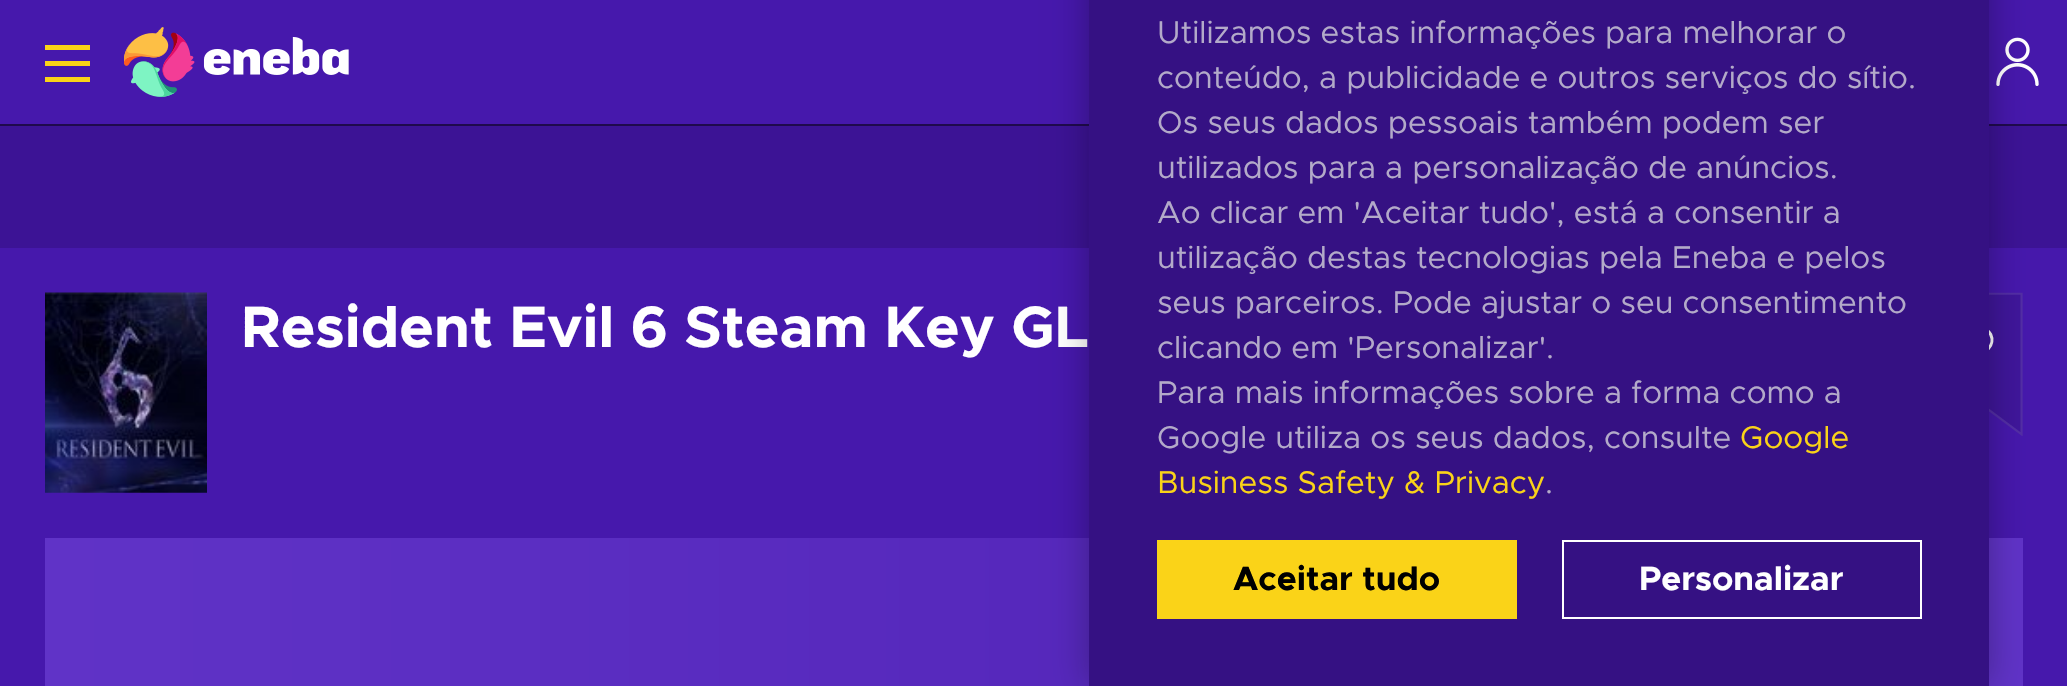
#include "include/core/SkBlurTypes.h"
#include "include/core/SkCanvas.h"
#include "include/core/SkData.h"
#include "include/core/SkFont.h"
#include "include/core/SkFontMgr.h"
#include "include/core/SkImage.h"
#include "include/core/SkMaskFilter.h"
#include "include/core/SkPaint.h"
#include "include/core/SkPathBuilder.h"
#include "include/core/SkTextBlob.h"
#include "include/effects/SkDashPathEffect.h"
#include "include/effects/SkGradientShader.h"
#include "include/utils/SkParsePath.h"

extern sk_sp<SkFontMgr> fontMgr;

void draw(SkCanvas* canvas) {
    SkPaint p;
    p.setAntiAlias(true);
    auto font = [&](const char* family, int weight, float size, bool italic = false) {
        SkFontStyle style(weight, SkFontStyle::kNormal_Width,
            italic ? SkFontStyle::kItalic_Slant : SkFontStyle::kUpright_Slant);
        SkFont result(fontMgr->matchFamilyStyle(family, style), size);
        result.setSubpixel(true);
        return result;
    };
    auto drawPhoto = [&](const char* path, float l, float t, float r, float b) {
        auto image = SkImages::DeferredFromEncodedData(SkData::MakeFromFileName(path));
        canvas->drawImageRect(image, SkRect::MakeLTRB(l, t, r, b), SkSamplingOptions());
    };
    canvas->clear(0xFF4618AC);
    {
        const struct { float l, t, r, b; SkColor color; } items[] = {
            {0, 124, 2067, 126, 0xFF1F0A4D},
            {45, 45, 90, 50, 0xFFFAD318},
            {45, 77, 90, 82, 0xFFFAD318},
            {45, 61, 90, 66, 0xFFFAD318},
        };
        for (auto [l, t, r, b, color] : items) {
            p.setColor(color);
            canvas->drawRect(SkRect::MakeLTRB(l, t, r, b), p);
        }
    }
    drawPhoto("media/1.png", 124, 27, 349, 97);
    drawPhoto("media/2.png", 1996, 37, 2039, 86);
    p.setColor(0xFF3C1395);
    canvas->drawRect(SkRect::MakeLTRB(0, 126, 2067, 248), p);
    drawPhoto("media/3.png", 45, 292, 207, 493);
    auto font1 = font("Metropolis", 700, 58.5f);
    p.setColor(0xFFFFFFFF);
    canvas->drawString("Resident Evil 6 Steam Key GL", 241, 347, font1, p);
    drawPhoto("media/4.png", 1989, 292, 2023, 436);
    {
        const SkColor colors[] = {0xFF6033C7, 0xFF5628BC, 0xFF6033C7};
        const float stops[] = {0, 0.5f, 1};
        const SkPoint ends[] = {{45, 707}, {2023, 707}};
        p.setShader(SkGradientShader::MakeLinear(ends, colors, stops, 3, SkTileMode::kClamp));
        p.setAlpha(255);
    }
    canvas->drawRect(SkRect::MakeLTRB(45, 538, 2023, 686), p);
    p.setShader(nullptr);
    p.setColor(0x4D000000);
    p.setMaskFilter(SkMaskFilter::MakeBlur(kNormal_SkBlurStyle, 17));
    canvas->drawRect(SkRect::MakeLTRB(1089, -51, 1989, 686), p);
    p.setMaskFilter(nullptr);
    p.setColor(0xFF351183);
    canvas->drawRect(SkRect::MakeLTRB(1089, 0, 1989, 686), p);
    auto font2 = font("Metropolis", 400, 31.5f);
    p.setColor(0xFFB3AAC9);
    {
        const struct { const char* s; float x, y; } items[] = {
            {"Utilizamos estas informações para melhorar o", 1157, 43},
            {"conteúdo, a publicidade e outros serviços do sítio.", 1157, 88},
            {"Os seus dados pessoais também podem ser", 1157, 133},
            {"utilizados para a personalização de anúncios.", 1157, 178},
            {"Ao clicar em 'Aceitar tudo', está a consentir a", 1157, 223},
            {"utilização destas tecnologias pela Eneba e pelos", 1157, 268},
            {"seus parceiros. Pode ajustar o seu consentimento", 1157, 313},
            {"clicando em 'Personalizar'.", 1157, 358},
            {"Para mais informações sobre a forma como a", 1157, 403},
            {"Google utiliza os seus dados, consulte", 1157, 448},
        };
        for (auto [s, x, y] : items) {
            canvas->drawString(s, x, y, font2, p);
        }
    }
    p.setColor(0xFFFAD318);
    canvas->drawString("Google", 1740, 448, font2, p);
    canvas->drawString("Business Safety & Privacy", 1157, 493, font2, p);
    p.setColor(0xFFB3AAC9);
    canvas->drawString(".", 1545, 493, font2, p);
    p.setColor(0xFFFAD318);
    canvas->drawRect(SkRect::MakeLTRB(1157, 540, 1517, 619), p);
    auto font3 = font("Metropolis", 700, 33.75f);
    p.setColor(0xFF000000);
    canvas->drawString("Aceitar tudo", 1233, 590, font3, p);
    p.setStyle(SkPaint::kStroke_Style);
    p.setStrokeWidth(2);
    p.setColor(0xFFFFFFFF);
    canvas->drawRect(SkRect::MakeLTRB(1563, 541, 1921, 618), p);
    p.setStyle(SkPaint::kFill_Style);
    canvas->drawString("Personalizar", 1639, 590, font3, p);
}
